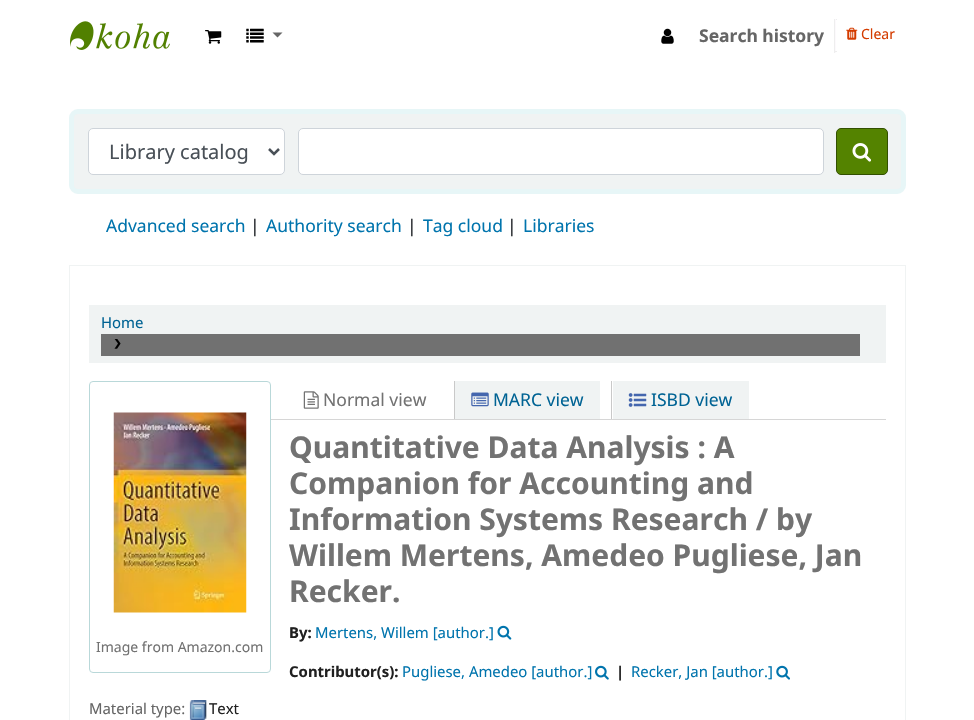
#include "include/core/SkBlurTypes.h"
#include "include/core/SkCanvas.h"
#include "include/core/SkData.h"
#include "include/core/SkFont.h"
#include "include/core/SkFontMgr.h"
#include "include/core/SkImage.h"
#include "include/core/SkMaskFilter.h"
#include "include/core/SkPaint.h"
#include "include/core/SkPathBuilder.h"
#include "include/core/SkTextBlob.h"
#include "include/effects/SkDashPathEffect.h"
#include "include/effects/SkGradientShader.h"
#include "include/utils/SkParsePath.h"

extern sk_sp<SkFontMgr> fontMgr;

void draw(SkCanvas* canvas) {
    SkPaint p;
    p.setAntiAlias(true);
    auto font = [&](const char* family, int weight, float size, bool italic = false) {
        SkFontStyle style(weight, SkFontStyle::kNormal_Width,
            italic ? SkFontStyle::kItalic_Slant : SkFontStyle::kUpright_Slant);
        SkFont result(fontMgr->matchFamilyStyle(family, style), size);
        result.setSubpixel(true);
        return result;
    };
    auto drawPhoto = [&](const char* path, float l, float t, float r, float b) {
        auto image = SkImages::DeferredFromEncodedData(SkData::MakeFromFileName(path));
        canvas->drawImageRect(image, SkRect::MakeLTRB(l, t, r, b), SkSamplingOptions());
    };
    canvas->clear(0xFFFFFFFF);
    drawPhoto("media/1.png", 70, 21, 170, 50);
    drawPhoto("media/2.png", 205, 30, 222, 44);
    drawPhoto("media/3.png", 246, 28, 264, 43);
    p.setColor(0xFF666666);
    canvas->drawPath(SkPathBuilder().moveTo(272.5f, 32.5f).lineTo(282.5f, 32.5f).lineTo(277.5f, 37.5f).close().detach(), p);
    drawPhoto("media/4.png", 661, 28, 674, 44);
    auto font1 = font("Noto Sans", 700, 17.5f);
    canvas->drawString("Search history", 699, 42, font1, p);
    {
        const struct { float l, t, r, b; SkColor color; } items[] = {
            {834, 19, 837, 20, 0xFFEEEEEE},
            {835, 19, 836, 53, 0xFFFCF9FC},
            {834, 51, 837, 52, 0xFFEEEEEE},
            {834, 19, 835, 53, 0xFFEEEEEE},
        };
        for (auto [l, t, r, b, color] : items) {
            p.setColor(color);
            canvas->drawRect(SkRect::MakeLTRB(l, t, r, b), p);
        }
    }
    drawPhoto("media/5.png", 846, 27, 858, 40);
    auto font2 = font("Noto Sans", 400, 14);
    p.setColor(0xFFD43C00);
    canvas->drawString("Clear", 861, 39, font2, p);
    p.setColor(0xFFF0F3F3);
    canvas->drawRoundRect(SkRect::MakeLTRB(71.5f, 111.5f, 903.5f, 191.5f), 6.5f, 6.5f, p);
    p.setStyle(SkPaint::kStroke_Style);
    p.setStrokeWidth(5);
    p.setColor(0xFFE7F6F7);
    canvas->drawRoundRect(SkRect::MakeLTRB(71.5f, 111.5f, 903.5f, 191.5f), 6.5f, 6.5f, p);
    p.setStyle(SkPaint::kFill_Style);
    p.setColor(0xFFFFFFFF);
    canvas->drawRoundRect(SkRect::MakeLTRB(88.5f, 128.5f, 284.5f, 174.5f), 4.5f, 4.5f, p);
    p.setStyle(SkPaint::kStroke_Style);
    p.setStrokeWidth(1);
    p.setColor(0xFFCED4DA);
    canvas->drawRoundRect(SkRect::MakeLTRB(88.5f, 128.5f, 284.5f, 174.5f), 4.5f, 4.5f, p);
    p.setStrokeWidth(2.5f);
    p.setColor(0xFF495057);
    canvas->drawPath(SkPathBuilder().moveTo(269, 149).lineTo(274, 154).lineTo(279, 149).detach(), p);
    auto font3 = font("Noto Sans", 400, 20);
    p.setStyle(SkPaint::kFill_Style);
    canvas->drawString("Library catalog", 109, 159, font3, p);
    p.setColor(0xFFFFFFFF);
    canvas->drawRoundRect(SkRect::MakeLTRB(298.5f, 128.5f, 823.5f, 174.5f), 4.5f, 4.5f, p);
    p.setStyle(SkPaint::kStroke_Style);
    p.setStrokeWidth(1);
    p.setColor(0xFFCED4DA);
    canvas->drawRoundRect(SkRect::MakeLTRB(298.5f, 128.5f, 823.5f, 174.5f), 4.5f, 4.5f, p);
    p.setStyle(SkPaint::kFill_Style);
    p.setColor(0xFF548300);
    canvas->drawRoundRect(SkRect::MakeLTRB(836.5f, 128.5f, 887.5f, 174.5f), 4.5f, 4.5f, p);
    p.setStyle(SkPaint::kStroke_Style);
    p.setColor(0xFF335000);
    canvas->drawRoundRect(SkRect::MakeLTRB(836.5f, 128.5f, 887.5f, 174.5f), 4.5f, 4.5f, p);
    drawPhoto("media/6.png", 852, 143, 871, 162);
    auto font4 = font("Noto Sans", 400, 17.5f);
    p.setStyle(SkPaint::kFill_Style);
    p.setColor(0xFF0074AD);
    canvas->drawString("Advanced search", 106, 232, font4, p);
    p.setColor(0xFF212529);
    canvas->drawString("|", 250, 232, font4, p);
    p.setColor(0xFF0074AD);
    canvas->drawString("Authority search", 266, 232, font4, p);
    p.setColor(0xFF212529);
    canvas->drawString("|", 407, 232, font4, p);
    p.setColor(0xFF0074AD);
    canvas->drawString("Tag cloud", 423, 232, font4, p);
    p.setColor(0xFF212529);
    canvas->drawString("|", 507, 232, font4, p);
    p.setColor(0xFF0074AD);
    canvas->drawString("Libraries", 523, 232, font4, p);
    p.setStyle(SkPaint::kStroke_Style);
    p.setColor(0xFFF0F3F3);
    canvas->drawRect(SkRect::MakeLTRB(69.5f, 265.5f, 905.5f, 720.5f), p);
    p.setStyle(SkPaint::kFill_Style);
    canvas->drawRect(SkRect::MakeLTRB(89, 305, 886, 363), p);
    auto font5 = font("Noto Sans", 400, 14.9f);
    p.setColor(0xFF006394);
    canvas->drawString("Home", 101, 328, font5, p);
    p.setColor(0xFF717171);
    canvas->drawRect(SkRect::MakeLTRB(101, 334, 860, 356), p);
    drawPhoto("media/7.png", 114, 339, 121, 349);
    p.setColor(0xFFD6D6D6);
    canvas->drawRect(SkRect::MakeLTRB(271, 419, 886, 420), p);
    drawPhoto("media/8.png", 303, 391, 319, 409);
    p.setColor(0xFF727272);
    canvas->drawString("Normal view", 323, 406, font4, p);
    p.setColor(0xFFF0F3F3);
    canvas->drawRect(SkRect::MakeLTRB(455, 381, 600, 419), p);
    p.setColor(0xFFC9C9C9);
    canvas->drawRect(SkRect::MakeLTRB(454, 381, 455, 419), p);
    drawPhoto("media/9.png", 471, 392, 489, 407);
    p.setColor(0xFF006394);
    canvas->drawString("MARC view", 493, 406, font4, p);
    p.setColor(0xFFF0F3F3);
    canvas->drawRect(SkRect::MakeLTRB(613, 381, 749, 419), p);
    p.setColor(0xFFC9C9C9);
    canvas->drawRect(SkRect::MakeLTRB(611, 381, 612, 419), p);
    drawPhoto("media/10.png", 628, 393, 647, 407);
    p.setColor(0xFF006394);
    canvas->drawString("ISBD view", 651, 406, font4, p);
    auto font6 = font("Noto Sans", 700, 30);
    p.setColor(0xFF727272);
    {
        const struct { const char* s; float x, y; } items[] = {
            {"Quantitative Data Analysis : A", 289, 458},
            {"Companion for Accounting and", 289, 494},
            {"Information Systems Research / by", 289, 530},
            {"Willem Mertens, Amedeo Pugliese, Jan", 289, 566},
            {"Recker.", 289, 602},
        };
        for (auto [s, x, y] : items) {
            canvas->drawString(s, x, y, font6, p);
        }
    }
    auto font7 = font("Noto Sans", 700, 14.9f);
    p.setColor(0xFF202020);
    canvas->drawString("By:", 289, 638, font7, p);
    p.setColor(0xFF0074AD);
    canvas->drawString("Mertens, Willem [author.]", 315, 638, font5, p);
    drawPhoto("media/11.png", 497, 625, 512, 640);
    p.setColor(0xFF202020);
    canvas->drawString("Contributor(s):", 289, 677, font7, p);
    p.setColor(0xFF0074AD);
    canvas->drawString("Pugliese, Amedeo [author.]", 402, 677, font5, p);
    drawPhoto("media/12.png", 595, 665, 609, 680);
    p.setColor(0xFF202020);
    canvas->drawString("|", 616, 677, font7, p);
    p.setColor(0xFF0074AD);
    canvas->drawString("Recker, Jan [author.]", 631, 677, font5, p);
    drawPhoto("media/13.png", 776, 665, 790, 680);
    p.setColor(0xFF666666);
    canvas->drawString("Material type:", 89, 714, font5, p);
    drawPhoto("media/14.png", 189, 700, 207, 720);
    p.setColor(0xFF202020);
    canvas->drawString("Text", 209, 714, font5, p);
    p.setStyle(SkPaint::kStroke_Style);
    p.setColor(0xFFB9D8D9);
    canvas->drawRoundRect(SkRect::MakeLTRB(89.5f, 381.5f, 270.5f, 672.5f), 3.5f, 3.5f, p);
    drawPhoto("media/15.png", 113, 412, 247, 613);
    p.setStyle(SkPaint::kFill_Style);
    p.setColor(0xFF727272);
    canvas->drawString("Image from Amazon.com", 96, 652, font2, p);
}
